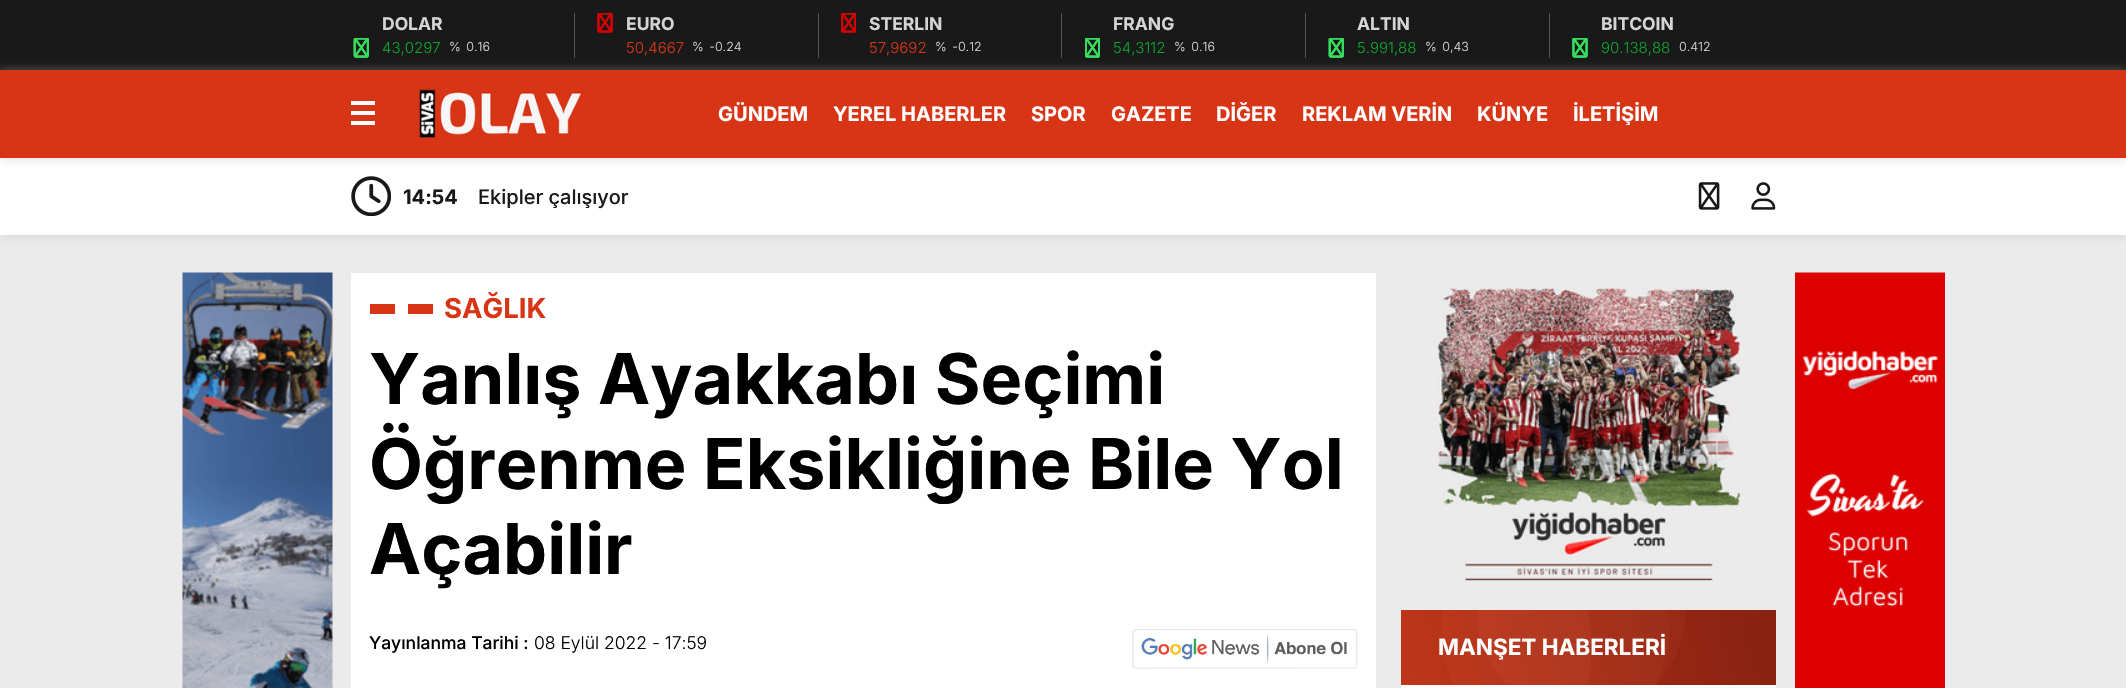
#include "include/core/SkBlurTypes.h"
#include "include/core/SkCanvas.h"
#include "include/core/SkData.h"
#include "include/core/SkFont.h"
#include "include/core/SkFontMgr.h"
#include "include/core/SkImage.h"
#include "include/core/SkMaskFilter.h"
#include "include/core/SkPaint.h"
#include "include/core/SkPathBuilder.h"
#include "include/core/SkTextBlob.h"
#include "include/effects/SkDashPathEffect.h"
#include "include/effects/SkGradientShader.h"
#include "include/utils/SkParsePath.h"

extern sk_sp<SkFontMgr> fontMgr;

void draw(SkCanvas* canvas) {
    SkPaint p;
    p.setAntiAlias(true);
    auto font = [&](const char* family, int weight, float size, bool italic = false) {
        SkFontStyle style(weight, SkFontStyle::kNormal_Width,
            italic ? SkFontStyle::kItalic_Slant : SkFontStyle::kUpright_Slant);
        SkFont result(fontMgr->matchFamilyStyle(family, style), size);
        result.setSubpixel(true);
        return result;
    };
    auto drawTracked = [&](const char* s, float x, float y, const SkFont& font, const SkPaint& ink, float letter, float word) {
        std::vector<SkGlyphID> glyphs(font.countText(s, strlen(s), SkTextEncoding::kUTF8));
        std::vector<float> xs(glyphs.size());
        font.textToGlyphs(s, strlen(s), SkTextEncoding::kUTF8, glyphs);
        font.getXPos(glyphs, xs, x);
        float extra = 0;
        for (size_t i = 0; i < glyphs.size(); i++) {
            xs[i] += extra;
            extra += letter + word * (glyphs[i] == font.unicharToGlyph(' '));
        }
        canvas->drawTextBlob(SkTextBlob::MakeFromPosHGlyphs(glyphs, xs, y, font), 0, 0, ink);
    };
    auto drawPhoto = [&](const char* path, float l, float t, float r, float b) {
        auto image = SkImages::DeferredFromEncodedData(SkData::MakeFromFileName(path));
        canvas->drawImageRect(image, SkRect::MakeLTRB(l, t, r, b), SkSamplingOptions());
    };
    canvas->clear(0xFFEBEBEB);
    p.setColor(0xFF191919);
    canvas->drawRect(SkRect::MakeLTRB(0, 0, 2126, 70), p);
    p.setColor(0xFF535353);
    canvas->drawRect(SkRect::MakeLTRB(574, 13, 575, 58), p);
    auto font1 = font("Inter", 700, 17.5f);
    p.setColor(0xFFD5D5D5);
    canvas->drawString("DOLAR", 382, 30, font1, p);
    drawPhoto("media/1.png", 353, 38, 369, 58);
    drawPhoto("media/2.png", 353, 38, 369, 58);
    drawPhoto("media/3.png", 353, 38, 369, 58);
    auto font2 = font("Inter", 300, 15);
    p.setColor(0xFF0BA22E);
    canvas->drawString("43,0297", 382, 53, font2, p);
    auto font3 = font("Inter", 300, 12.5f);
    p.setColor(0xFFD5D5D5);
    drawTracked("% 0.16", 449, 51, font3, p, 0, 2);
    p.setColor(0xFF535353);
    canvas->drawRect(SkRect::MakeLTRB(818, 13, 819, 58), p);
    drawPhoto("media/4.png", 597, 13, 613, 33);
    drawPhoto("media/5.png", 597, 13, 613, 33);
    drawPhoto("media/6.png", 597, 13, 613, 33);
    p.setColor(0xFFD5D5D5);
    canvas->drawString("EURO", 626, 30, font1, p);
    p.setColor(0xFFD73516);
    canvas->drawString("50,4667", 626, 53, font2, p);
    p.setColor(0xFFD5D5D5);
    drawTracked("% -0.24", 692, 51, font3, p, 0, 2);
    p.setColor(0xFF535353);
    canvas->drawRect(SkRect::MakeLTRB(1061, 13, 1062, 58), p);
    drawPhoto("media/7.png", 841, 13, 856, 33);
    drawPhoto("media/8.png", 841, 13, 856, 33);
    drawPhoto("media/9.png", 841, 13, 856, 33);
    p.setColor(0xFFD5D5D5);
    canvas->drawString("STERLIN", 869, 30, font1, p);
    p.setColor(0xFFD73516);
    canvas->drawString("57,9692", 869, 53, font2, p);
    p.setColor(0xFFD5D5D5);
    drawTracked("% -0.12", 935, 51, font3, p, 0, 2);
    p.setColor(0xFF535353);
    canvas->drawRect(SkRect::MakeLTRB(1305, 13, 1306, 58), p);
    p.setColor(0xFFD5D5D5);
    canvas->drawString("FRANG", 1113, 30, font1, p);
    drawPhoto("media/10.png", 1085, 38, 1100, 58);
    drawPhoto("media/11.png", 1085, 38, 1100, 58);
    drawPhoto("media/12.png", 1085, 38, 1100, 58);
    p.setColor(0xFF0BA22E);
    canvas->drawString("54,3112", 1113, 53, font2, p);
    p.setColor(0xFFD5D5D5);
    drawTracked("% 0.16", 1174, 51, font3, p, 0, 2);
    p.setColor(0xFF535353);
    canvas->drawRect(SkRect::MakeLTRB(1549, 13, 1550, 58), p);
    p.setColor(0xFFD5D5D5);
    canvas->drawString("ALTIN", 1357, 30, font1, p);
    drawPhoto("media/1.png", 1328, 38, 1344, 58);
    drawPhoto("media/2.png", 1328, 38, 1344, 58);
    drawPhoto("media/3.png", 1328, 38, 1344, 58);
    p.setColor(0xFF0BA22E);
    canvas->drawString("5.991,88", 1357, 53, font2, p);
    p.setColor(0xFFD5D5D5);
    drawTracked("% 0,43", 1425, 51, font3, p, 0, 2);
    canvas->drawString("BITCOIN", 1601, 30, font1, p);
    drawPhoto("media/13.png", 1572, 38, 1588, 58);
    drawPhoto("media/14.png", 1572, 38, 1588, 58);
    drawPhoto("media/15.png", 1572, 38, 1588, 58);
    p.setColor(0xFF0BA22E);
    canvas->drawString("90.138,88", 1601, 53, font2, p);
    p.setColor(0xFFD5D5D5);
    canvas->drawString("0.412", 1679, 51, font3, p);
    p.setColor(0x80BABABA);
    p.setMaskFilter(SkMaskFilter::MakeBlur(kNormal_SkBlurStyle, 5));
    canvas->drawRect(SkRect::MakeLTRB(0, 159, 2126, 236), p);
    p.setMaskFilter(nullptr);
    p.setColor(0xFFFFFFFF);
    canvas->drawRect(SkRect::MakeLTRB(0, 158, 2126, 235), p);
    p.setColor(0x80BABABA);
    p.setMaskFilter(SkMaskFilter::MakeBlur(kNormal_SkBlurStyle, 5));
    canvas->drawRect(SkRect::MakeLTRB(0, 71, 2126, 159), p);
    p.setMaskFilter(nullptr);
    {
        const struct { float l, t, r, b; SkColor color; } items[] = {
            {0, 70, 2126, 158, 0xFFD73516},
            {351, 111, 375, 115, 0xFFFFFFFF},
            {351, 101, 375, 105, 0xFFFFFFFF},
            {351, 121, 375, 125, 0xFFFFFFFF},
        };
        for (auto [l, t, r, b, color] : items) {
            p.setColor(color);
            canvas->drawRect(SkRect::MakeLTRB(l, t, r, b), p);
        }
    }
    drawPhoto("media/16.png", 419, 89, 582, 138);
    auto font4 = font("Inter", 700, 20);
    {
        const struct { const char* s; float x, y; } items[] = {
            {"GÜNDEM", 718, 121},
            {"YEREL HABERLER", 833, 121},
            {"SPOR", 1031, 121},
            {"GAZETE", 1111, 121},
            {"DİĞER", 1216, 121},
            {"REKLAM VERİN", 1302, 121},
            {"KÜNYE", 1477, 121},
            {"İLETİŞİM", 1573, 121},
        };
        for (auto [s, x, y] : items) {
            canvas->drawString(s, x, y, font4, p);
        }
    }
    drawPhoto("media/17.png", 351, 176, 391, 216);
    p.setColor(0xFF191919);
    canvas->drawString("14:54", 403, 204, font4, p);
    auto font5 = font("Inter", 500, 20);
    canvas->drawString("Ekipler çalışıyor", 478, 204, font5, p);
    drawPhoto("media/18.png", 1698, 182, 1720, 210);
    drawPhoto("media/19.png", 1751, 182, 1776, 210);
    drawPhoto("media/20.png", 182, 272, 333, 688);
    drawPhoto("media/21.png", 1795, 272, 1945, 688);
    {
        const struct { float l, t, r, b; SkColor color; } items[] = {
            {351, 273, 1376, 688, 0xFFFFFFFF},
            {370, 304, 395, 314, 0xFFD73516},
            {408, 304, 433, 314, 0xFFD73516},
        };
        for (auto [l, t, r, b, color] : items) {
            p.setColor(color);
            canvas->drawRect(SkRect::MakeLTRB(l, t, r, b), p);
        }
    }
    auto font6 = font("Inter", 700, 27.5f);
    canvas->drawString("SAĞLIK", 444, 318, font6, p);
    auto font7 = font("Inter", 700, 70);
    p.setColor(0xFF000000);
    {
        const struct { const char* s; float x, y; } items[] = {
            {"Yanlış Ayakkabı Seçimi", 369, 404},
            {"Öğrenme Eksikliğine Bile Yol", 369, 489},
            {"Açabilir", 369, 574},
        };
        for (auto [s, x, y] : items) {
            canvas->drawString(s, x, y, font7, p);
        }
    }
    auto font8 = font("Inter", 500, 17.5f);
    canvas->drawString("Yayınlanma Tarihi :", 369, 649, font8, p);
    auto font9 = font("Inter", 300, 17.5f);
    canvas->drawString("08 Eylül 2022 - 17:59", 534, 649, font9, p);
    drawPhoto("media/22.png", 1132, 629, 1358, 669);
    drawPhoto("media/23.png", 1435, 287, 1741, 581);
    p.setColor(0xFFFFFFFF);
    canvas->drawRect(SkRect::MakeLTRB(1401, 685, 1776, 688), p);
    {
        const SkColor colors[] = {0xFF9D2610, 0xFFD73516};
        const float stops[] = {0, 1};
        const SkPoint ends[] = {{1773, 598}, {1404, 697}};
        p.setShader(SkGradientShader::MakeLinear(ends, colors, stops, 2, SkTileMode::kClamp));
        p.setAlpha(255);
    }
    canvas->drawRect(SkRect::MakeLTRB(1401, 610, 1776, 685), p);
    {
        const SkColor colors[] = {0x0D5D5D5D, 0x0D5D5D5D, 0x0D070707, 0x0D070707};
        const float stops[] = {0, 0.5f, 0.5f, 1};
        p.setShader(SkGradientShader::MakeRadial({1581, 611}, 209, colors, stops, 4, SkTileMode::kClamp));
        p.setAlpha(255);
    }
    canvas->drawRect(SkRect::MakeLTRB(1401, 610, 1776, 685), p);
    {
        const SkColor colors[] = {0x0D515151, 0x0D515151, 0x0D070707, 0x0D070707};
        const float stops[] = {0, 0.5f, 0.5f, 1};
        p.setShader(SkGradientShader::MakeRadial({1555, 631}, 228, colors, stops, 4, SkTileMode::kClamp));
        p.setAlpha(255);
    }
    canvas->drawRect(SkRect::MakeLTRB(1401, 610, 1776, 685), p);
    {
        const SkColor colors[] = {0x0D8B8B8B, 0x0D8B8B8B, 0x0D151515, 0x0D151515};
        const float stops[] = {0, 0.5f, 0.5f, 1};
        p.setShader(SkGradientShader::MakeRadial({1405, 649}, 373, colors, stops, 4, SkTileMode::kClamp));
        p.setAlpha(255);
    }
    canvas->drawRect(SkRect::MakeLTRB(1401, 610, 1776, 685), p);
    auto font10 = font("Inter", 700, 22.5f);
    p.setShader(nullptr);
    p.setColor(0xFFFFFFFF);
    canvas->drawString("MANŞET HABERLERİ", 1438, 655, font10, p);
}
